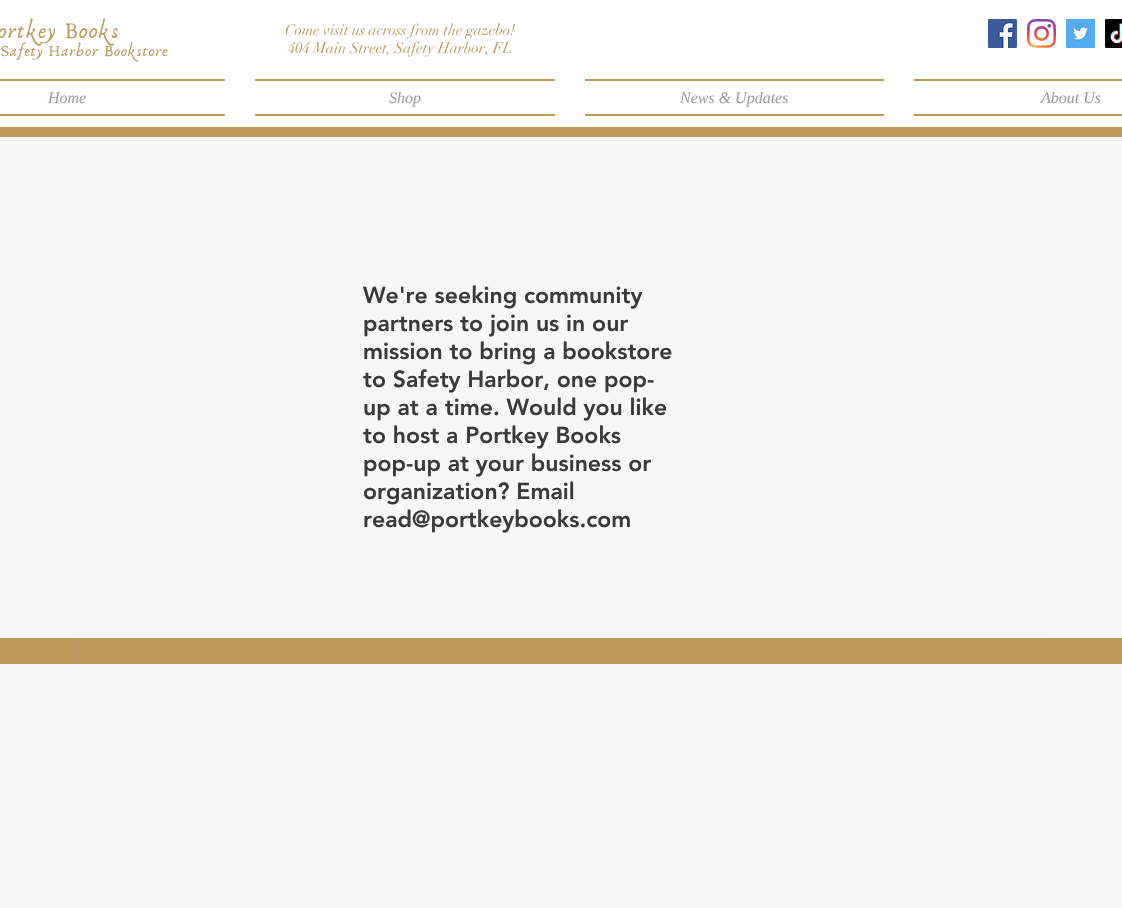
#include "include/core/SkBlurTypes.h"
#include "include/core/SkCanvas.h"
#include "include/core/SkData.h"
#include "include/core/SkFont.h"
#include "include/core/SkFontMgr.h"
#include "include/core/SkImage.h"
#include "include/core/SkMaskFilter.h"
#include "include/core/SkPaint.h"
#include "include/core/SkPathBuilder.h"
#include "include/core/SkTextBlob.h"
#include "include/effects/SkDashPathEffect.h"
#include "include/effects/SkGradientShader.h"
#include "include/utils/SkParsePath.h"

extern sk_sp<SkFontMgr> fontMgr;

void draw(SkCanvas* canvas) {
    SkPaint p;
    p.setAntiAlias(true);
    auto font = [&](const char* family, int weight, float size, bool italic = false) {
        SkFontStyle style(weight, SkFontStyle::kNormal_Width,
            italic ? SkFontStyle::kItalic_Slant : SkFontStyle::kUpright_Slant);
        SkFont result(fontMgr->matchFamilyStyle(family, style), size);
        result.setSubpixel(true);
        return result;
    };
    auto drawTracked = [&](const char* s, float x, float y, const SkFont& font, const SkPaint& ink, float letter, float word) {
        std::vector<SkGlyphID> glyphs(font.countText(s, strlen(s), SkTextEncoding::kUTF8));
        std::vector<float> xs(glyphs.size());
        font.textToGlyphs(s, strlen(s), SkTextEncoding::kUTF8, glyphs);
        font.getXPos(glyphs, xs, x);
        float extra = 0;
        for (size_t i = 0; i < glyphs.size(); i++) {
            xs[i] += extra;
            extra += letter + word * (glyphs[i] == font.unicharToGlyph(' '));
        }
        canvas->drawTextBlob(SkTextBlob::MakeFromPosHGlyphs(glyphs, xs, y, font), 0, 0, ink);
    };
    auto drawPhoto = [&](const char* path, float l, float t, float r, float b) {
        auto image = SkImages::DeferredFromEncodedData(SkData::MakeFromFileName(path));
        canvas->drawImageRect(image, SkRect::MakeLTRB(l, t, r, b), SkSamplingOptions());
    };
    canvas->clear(0xFFF7F7F7);
    p.setColor(0xFFFFFFFF);
    canvas->drawRect(SkRect::MakeLTRB(0, 0, 1122, 138), p);
    auto font1 = font("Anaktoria", 400, 23);
    p.setColor(0xFFBC9B5D);
    drawTracked("ortkey Books", -2, 38, font1, p, 1.1f, 0);
    auto font2 = font("Anaktoria", 400, 16);
    drawTracked("Safety Harbor Bookstore", 1, 56, font2, p, 0.8f, 0);
    auto font3 = font("didot", 400, 15);
    canvas->drawString("Come visit us across from the gazebo!", 285, 35, font3, p);
    canvas->drawString("404 Main Street, Safety Harbor, FL", 288, 53, font3, p);
    drawPhoto("media/1.png", 988, 19, 1017, 48);
    drawPhoto("media/2.png", 1027, 19, 1056, 48);
    drawPhoto("media/3.png", 1066, 19, 1095, 48);
    drawPhoto("media/4.png", 1105, 19, 1122, 48);
    p.setColor(0xFFBC9B59);
    canvas->drawRect(SkRect::MakeLTRB(0, 79, 225, 81), p);
    canvas->drawRect(SkRect::MakeLTRB(0, 114, 225, 116), p);
    auto font4 = font("Liberation Serif", 400, 16, true);
    p.setColor(0xFF9E9E9E);
    canvas->drawString("Home", 48, 103, font4, p);
    p.setColor(0xFFBC9B59);
    canvas->drawRect(SkRect::MakeLTRB(255, 79, 555, 81), p);
    canvas->drawRect(SkRect::MakeLTRB(255, 114, 555, 116), p);
    p.setColor(0xFF9E9E9E);
    canvas->drawString("Shop", 389, 103, font4, p);
    p.setColor(0xFFBC9B59);
    canvas->drawRect(SkRect::MakeLTRB(585, 79, 884, 81), p);
    canvas->drawRect(SkRect::MakeLTRB(585, 114, 884, 116), p);
    p.setColor(0xFF9E9E9E);
    canvas->drawString("News & Updates", 680, 103, font4, p);
    p.setColor(0xFFBC9B59);
    canvas->drawRect(SkRect::MakeLTRB(914, 79, 1122, 81), p);
    canvas->drawRect(SkRect::MakeLTRB(914, 114, 1122, 116), p);
    p.setColor(0xFF9E9E9E);
    canvas->drawString("About Us", 1041, 103, font4, p);
    p.setColor(0xFFBC9B5D);
    canvas->drawRect(SkRect::MakeLTRB(0, 127, 1122, 137), p);
    auto font5 = font("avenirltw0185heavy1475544", 900, 23);
    p.setColor(0xFF3B3A3A);
    {
        const struct { const char* s; float x, y; } items[] = {
            {"We're seeking community", 363, 303},
            {"partners to join us in our", 363, 331},
            {"mission to bring a bookstore", 363, 359},
            {"to Safety Harbor, one pop-", 363, 387},
            {"up at a time. Would you like", 363, 415},
            {"to host a Portkey Books", 363, 443},
            {"pop-up at your business or", 363, 471},
            {"organization? Email", 363, 499},
            {"read@portkeybooks.com", 363, 527},
        };
        for (auto [s, x, y] : items) {
            canvas->drawString(s, x, y, font5, p);
        }
    }
    p.setColor(0xFFBC9B59);
    canvas->drawRect(SkRect::MakeLTRB(0, 638, 1122, 664), p);
    p.setColor(0xFFBC9B5D);
    canvas->drawRect(SkRect::MakeLTRB(71, 638, 1051, 664), p);
}
